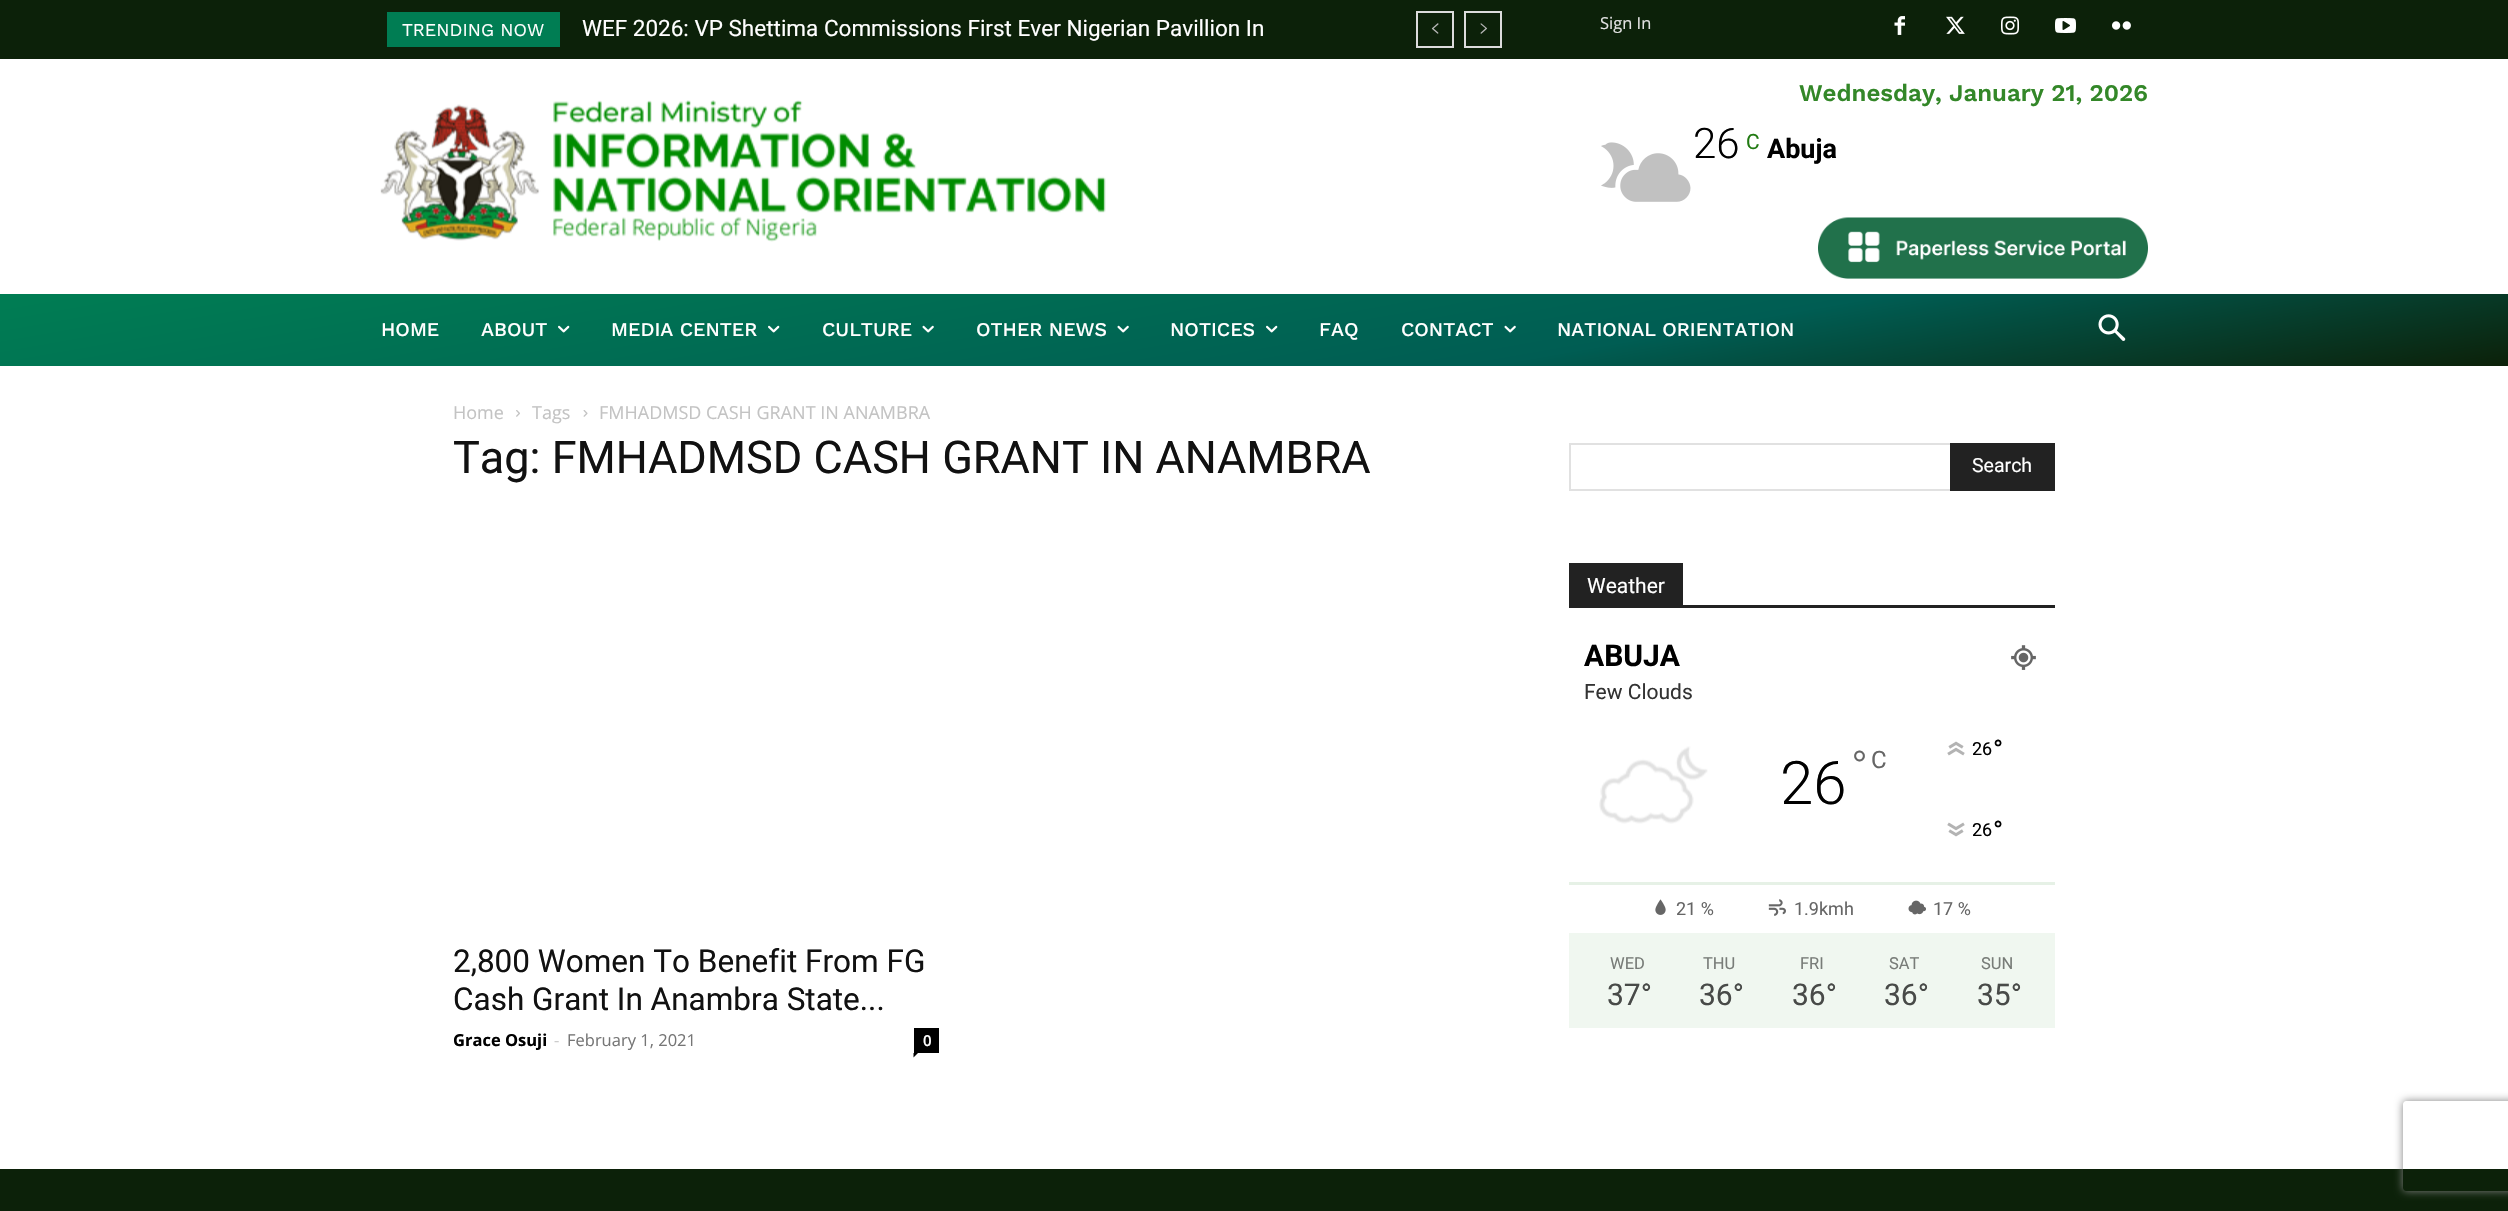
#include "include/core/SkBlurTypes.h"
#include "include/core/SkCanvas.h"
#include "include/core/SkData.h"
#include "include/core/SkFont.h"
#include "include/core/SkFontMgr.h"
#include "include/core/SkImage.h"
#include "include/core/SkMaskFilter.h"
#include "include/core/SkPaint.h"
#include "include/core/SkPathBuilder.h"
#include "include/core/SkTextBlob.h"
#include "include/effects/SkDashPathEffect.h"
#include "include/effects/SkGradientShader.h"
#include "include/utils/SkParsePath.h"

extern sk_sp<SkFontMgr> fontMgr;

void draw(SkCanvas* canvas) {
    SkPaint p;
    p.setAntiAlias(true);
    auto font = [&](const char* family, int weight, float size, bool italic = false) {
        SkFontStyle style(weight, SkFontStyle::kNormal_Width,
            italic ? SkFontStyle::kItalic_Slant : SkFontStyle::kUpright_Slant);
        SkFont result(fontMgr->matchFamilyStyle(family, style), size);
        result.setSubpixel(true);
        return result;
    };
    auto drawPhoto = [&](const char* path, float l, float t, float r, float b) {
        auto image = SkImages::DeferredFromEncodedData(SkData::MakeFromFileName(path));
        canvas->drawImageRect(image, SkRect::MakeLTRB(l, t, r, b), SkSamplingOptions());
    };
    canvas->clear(0xFFFFFFFF);
    p.setColor(0xFF0C2109);
    canvas->drawRect(SkRect::MakeLTRB(0, 0, 2508, 59), p);
    p.setColor(0xFF007D53);
    canvas->drawRect(SkRect::MakeLTRB(387, 12, 560, 47), p);
    auto font1 = font("Work Sans", 400, 18);
    p.setColor(0xFFFFFFFF);
    canvas->drawString("TRENDING NOW", 402, 36, font1, p);
    auto font2 = font("Roboto", 400, 22.5f);
    canvas->drawString("WEF 2026: VP Shettima Commissions First Ever Nigerian Pavillion In", 582, 36, font2, p);
    p.setStyle(SkPaint::kStroke_Style);
    p.setStrokeWidth(2);
    p.setColor(0xFFDCDCDC);
    canvas->drawRect(SkRect::MakeLTRB(1417, 12, 1453, 47), p);
    drawPhoto("media/1.png", 1431, 23, 1439, 34);
    canvas->drawRect(SkRect::MakeLTRB(1465, 12, 1501, 47), p);
    drawPhoto("media/2.png", 1480, 23, 1488, 34);
    auto font3 = font("Open Sans", 400, 16.5f);
    p.setStyle(SkPaint::kFill_Style);
    p.setColor(0xFFE2E2E2);
    canvas->drawString("Sign In", 1600, 29, font3, p);
    drawPhoto("media/3.png", 1894, 16, 1905, 35);
    drawPhoto("media/4.png", 1946, 16, 1965, 34);
    drawPhoto("media/5.png", 2001, 16, 2019, 35);
    drawPhoto("media/6.png", 2055, 18, 2076, 33);
    drawPhoto("media/7.png", 2112, 21, 2131, 30);
    drawPhoto("media/8.png", 380, 100, 1106, 242);
    auto font4 = font("Work Sans", 600, 24);
    p.setColor(0xFF338728);
    canvas->drawString("Wednesday, January 21, 2026", 1799, 101, font4, p);
    drawPhoto("media/9.png", 1601, 142, 1691, 202);
    auto font5 = font("Roboto", 300, 42);
    p.setColor(0xFF000000);
    canvas->drawString("26", 1693, 158, font5, p);
    auto font6 = font("Roboto", 400, 21);
    p.setColor(0xFF217A12);
    canvas->drawString("C", 1746, 149, font6, p);
    auto font7 = font("Roboto", 700, 27);
    p.setColor(0xFF000000);
    canvas->drawString("Abuja", 1767, 158, font7, p);
    drawPhoto("media/10.png", 1818, 217, 2148, 279);
    {
        const SkColor colors[] = {0xFF0C2109, 0xFF005D53, 0xFF007D53};
        const float stops[] = {0, 0.35f, 1};
        const SkPoint ends[] = {{1298, 579}, {1210, 81}};
        p.setShader(SkGradientShader::MakeLinear(ends, colors, stops, 3, SkTileMode::kClamp));
        p.setAlpha(255);
    }
    canvas->drawRect(SkRect::MakeLTRB(0, 294, 2508, 366), p);
    auto font8 = font("Work Sans", 500, 19.5f);
    p.setShader(nullptr);
    p.setColor(0xFFFFFFFF);
    canvas->drawString("HOME", 381, 336, font8, p);
    canvas->drawString("ABOUT", 481, 336, font8, p);
    drawPhoto("media/11.png", 558, 325, 570, 333);
    canvas->drawString("MEDIA CENTER", 611, 336, font8, p);
    drawPhoto("media/12.png", 768, 325, 780, 333);
    canvas->drawString("CULTURE", 822, 336, font8, p);
    drawPhoto("media/13.png", 922, 325, 934, 333);
    canvas->drawString("OTHER NEWS", 976, 336, font8, p);
    drawPhoto("media/14.png", 1117, 325, 1129, 333);
    canvas->drawString("NOTICES", 1170, 336, font8, p);
    drawPhoto("media/15.png", 1266, 325, 1278, 333);
    canvas->drawString("FAQ", 1319, 336, font8, p);
    canvas->drawString("CONTACT", 1401, 336, font8, p);
    drawPhoto("media/16.png", 1504, 325, 1516, 333);
    canvas->drawString("NATIONAL ORIENTATION", 1557, 336, font8, p);
    drawPhoto("media/17.png", 2098, 314, 2126, 341);
    auto font9 = font("Open Sans", 400, 18);
    p.setColor(0xFFC3C3C3);
    canvas->drawString("Home", 453, 419, font9, p);
    drawPhoto("media/18.png", 516, 410, 520, 417);
    canvas->drawString("Tags", 532, 419, font9, p);
    drawPhoto("media/19.png", 583, 410, 588, 417);
    canvas->drawString("FMHADMSD CASH GRANT IN ANAMBRA", 599, 419, font9, p);
    auto font10 = font("Roboto", 400, 45);
    p.setColor(0xFF111111);
    canvas->drawString("Tag: FMHADMSD CASH GRANT IN ANAMBRA", 453, 473, font10, p);
    auto font11 = font("Roboto", 400, 31.5f);
    canvas->drawString("2,800 Women To Benefit From FG", 453, 972, font11, p);
    canvas->drawString("Cash Grant In Anambra State...", 453, 1010, font11, p);
    auto font12 = font("Open Sans", 700, 16.5f);
    p.setColor(0xFF000000);
    canvas->drawString("Grace Osuji", 453, 1046, font12, p);
    p.setColor(0xFFCCCCCC);
    canvas->drawString("-", 554, 1046, font3, p);
    p.setColor(0xFF767676);
    canvas->drawString("February 1, 2021", 567, 1046, font3, p);
    p.setColor(0xFF000000);
    canvas->drawRect(SkRect::MakeLTRB(914, 1028, 939, 1053), p);
    auto font13 = font("Open Sans", 600, 15);
    p.setColor(0xFFFFFFFF);
    canvas->drawString("0", 923, 1046, font13, p);
    p.setColor(0xFF000000);
    canvas->drawPath(SkPathBuilder().moveTo(913.5f, 1053).lineTo(918, 1053).lineTo(913.5f, 1057.5f).close().detach(), p);
    {
        const struct { float l, t, r, b; SkColor color; } items[] = {
            {1569, 443, 1950, 445, 0xFFE1E1E1},
            {1569, 489, 1950, 491, 0xFFE1E1E1},
            {1569, 443, 1571, 491, 0xFFE1E1E1},
            {1950, 443, 2055, 491, 0xFF222222},
        };
        for (auto [l, t, r, b, color] : items) {
            p.setColor(color);
            canvas->drawRect(SkRect::MakeLTRB(l, t, r, b), p);
        }
    }
    auto font14 = font("Roboto", 400, 19.5f);
    p.setColor(0xFFFFFFFF);
    canvas->drawString("Search", 1972, 472, font14, p);
    p.setColor(0xFF222222);
    canvas->drawRect(SkRect::MakeLTRB(1569, 605, 2055, 608), p);
    canvas->drawRect(SkRect::MakeLTRB(1569, 563, 1683, 605), p);
    p.setColor(0xFFFFFFFF);
    canvas->drawString("Weather", 1587, 593, font6, p);
    auto font15 = font("Roboto", 700, 30);
    p.setColor(0xFF000000);
    canvas->drawString("ABUJA", 1584, 666, font15, p);
    drawPhoto("media/20.png", 2011, 645, 2036, 670);
    p.setColor(0xFF333333);
    canvas->drawString("Few Clouds", 1584, 699, font6, p);
    drawPhoto("media/21.png", 1599, 746, 1708, 824);
    auto font16 = font("Roboto", 300, 60);
    p.setColor(0xFF000000);
    canvas->drawString("26", 1780, 804, font16, p);
    auto font17 = font("Roboto", 300, 45);
    p.setColor(0xFF666666);
    canvas->drawString("°", 1851, 783, font17, p);
    auto font18 = font("Roboto", 400, 24);
    canvas->drawString("C", 1871, 768, font18, p);
    drawPhoto("media/22.png", 1947, 741, 1965, 756);
    auto font19 = font("Roboto", 400, 18);
    p.setColor(0xFF000000);
    canvas->drawString("26", 1972, 755, font19, p);
    auto font20 = font("Roboto", 400, 27);
    canvas->drawString("°", 1993, 759, font20, p);
    drawPhoto("media/23.png", 1947, 822, 1965, 837);
    canvas->drawString("26", 1972, 836, font19, p);
    canvas->drawString("°", 1993, 840, font20, p);
    p.setColor(0xFFE6F1E6);
    canvas->drawRect(SkRect::MakeLTRB(1569, 882, 2055, 885), p);
    drawPhoto("media/24.png", 1655, 899, 1666, 915);
    p.setColor(0xFF666666);
    canvas->drawString("21 %", 1676, 915, font19, p);
    drawPhoto("media/25.png", 1768, 899, 1786, 916);
    canvas->drawString("1.9kmh", 1794, 915, font19, p);
    drawPhoto("media/26.png", 1908, 900, 1926, 915);
    canvas->drawString("17 %", 1933, 915, font19, p);
    p.setColor(0xFFF0F7F0);
    canvas->drawRect(SkRect::MakeLTRB(1569, 933, 2055, 1028), p);
    auto font21 = font("Roboto", 400, 16.5f);
    p.setColor(0xFF787C78);
    canvas->drawString("WED", 1610, 969, font21, p);
    auto font22 = font("Roboto", 400, 30);
    p.setColor(0xFF484A48);
    canvas->drawString("37°", 1607, 1005, font22, p);
    p.setColor(0xFF787C78);
    canvas->drawString("THU", 1703, 969, font21, p);
    p.setColor(0xFF484A48);
    canvas->drawString("36°", 1699, 1005, font22, p);
    p.setColor(0xFF787C78);
    canvas->drawString("FRI", 1800, 969, font21, p);
    p.setColor(0xFF484A48);
    canvas->drawString("36°", 1792, 1005, font22, p);
    p.setColor(0xFF787C78);
    canvas->drawString("SAT", 1889, 969, font21, p);
    p.setColor(0xFF484A48);
    canvas->drawString("36°", 1884, 1005, font22, p);
    p.setColor(0xFF787C78);
    canvas->drawString("SUN", 1981, 969, font21, p);
    p.setColor(0xFF484A48);
    canvas->drawString("35°", 1977, 1005, font22, p);
    p.setColor(0xFF0C2109);
    canvas->drawRect(SkRect::MakeLTRB(0, 1169, 2508, 1211), p);
    canvas->save();
    canvas->clipPath(SkPathBuilder(SkPathFillType::kEvenOdd).moveTo(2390, 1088).lineTo(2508, 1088).lineTo(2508, 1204).lineTo(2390, 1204).close().moveTo(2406, 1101).lineTo(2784, 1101).cubicTo(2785.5f, 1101, 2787, 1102.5f, 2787, 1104).lineTo(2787, 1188).cubicTo(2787, 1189.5f, 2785.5f, 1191, 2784, 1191).lineTo(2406, 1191).cubicTo(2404.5f, 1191, 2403, 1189.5f, 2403, 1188).lineTo(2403, 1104).cubicTo(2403, 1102.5f, 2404.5f, 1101, 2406, 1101).close().detach(), true);
    p.setColor(0xFF808080);
    p.setMaskFilter(SkMaskFilter::MakeBlur(kNormal_SkBlurStyle, 4));
    canvas->drawRoundRect(SkRect::MakeLTRB(2403, 1101, 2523, 1191), 3, 3, p);
    p.setMaskFilter(nullptr);
    canvas->restore();
}
